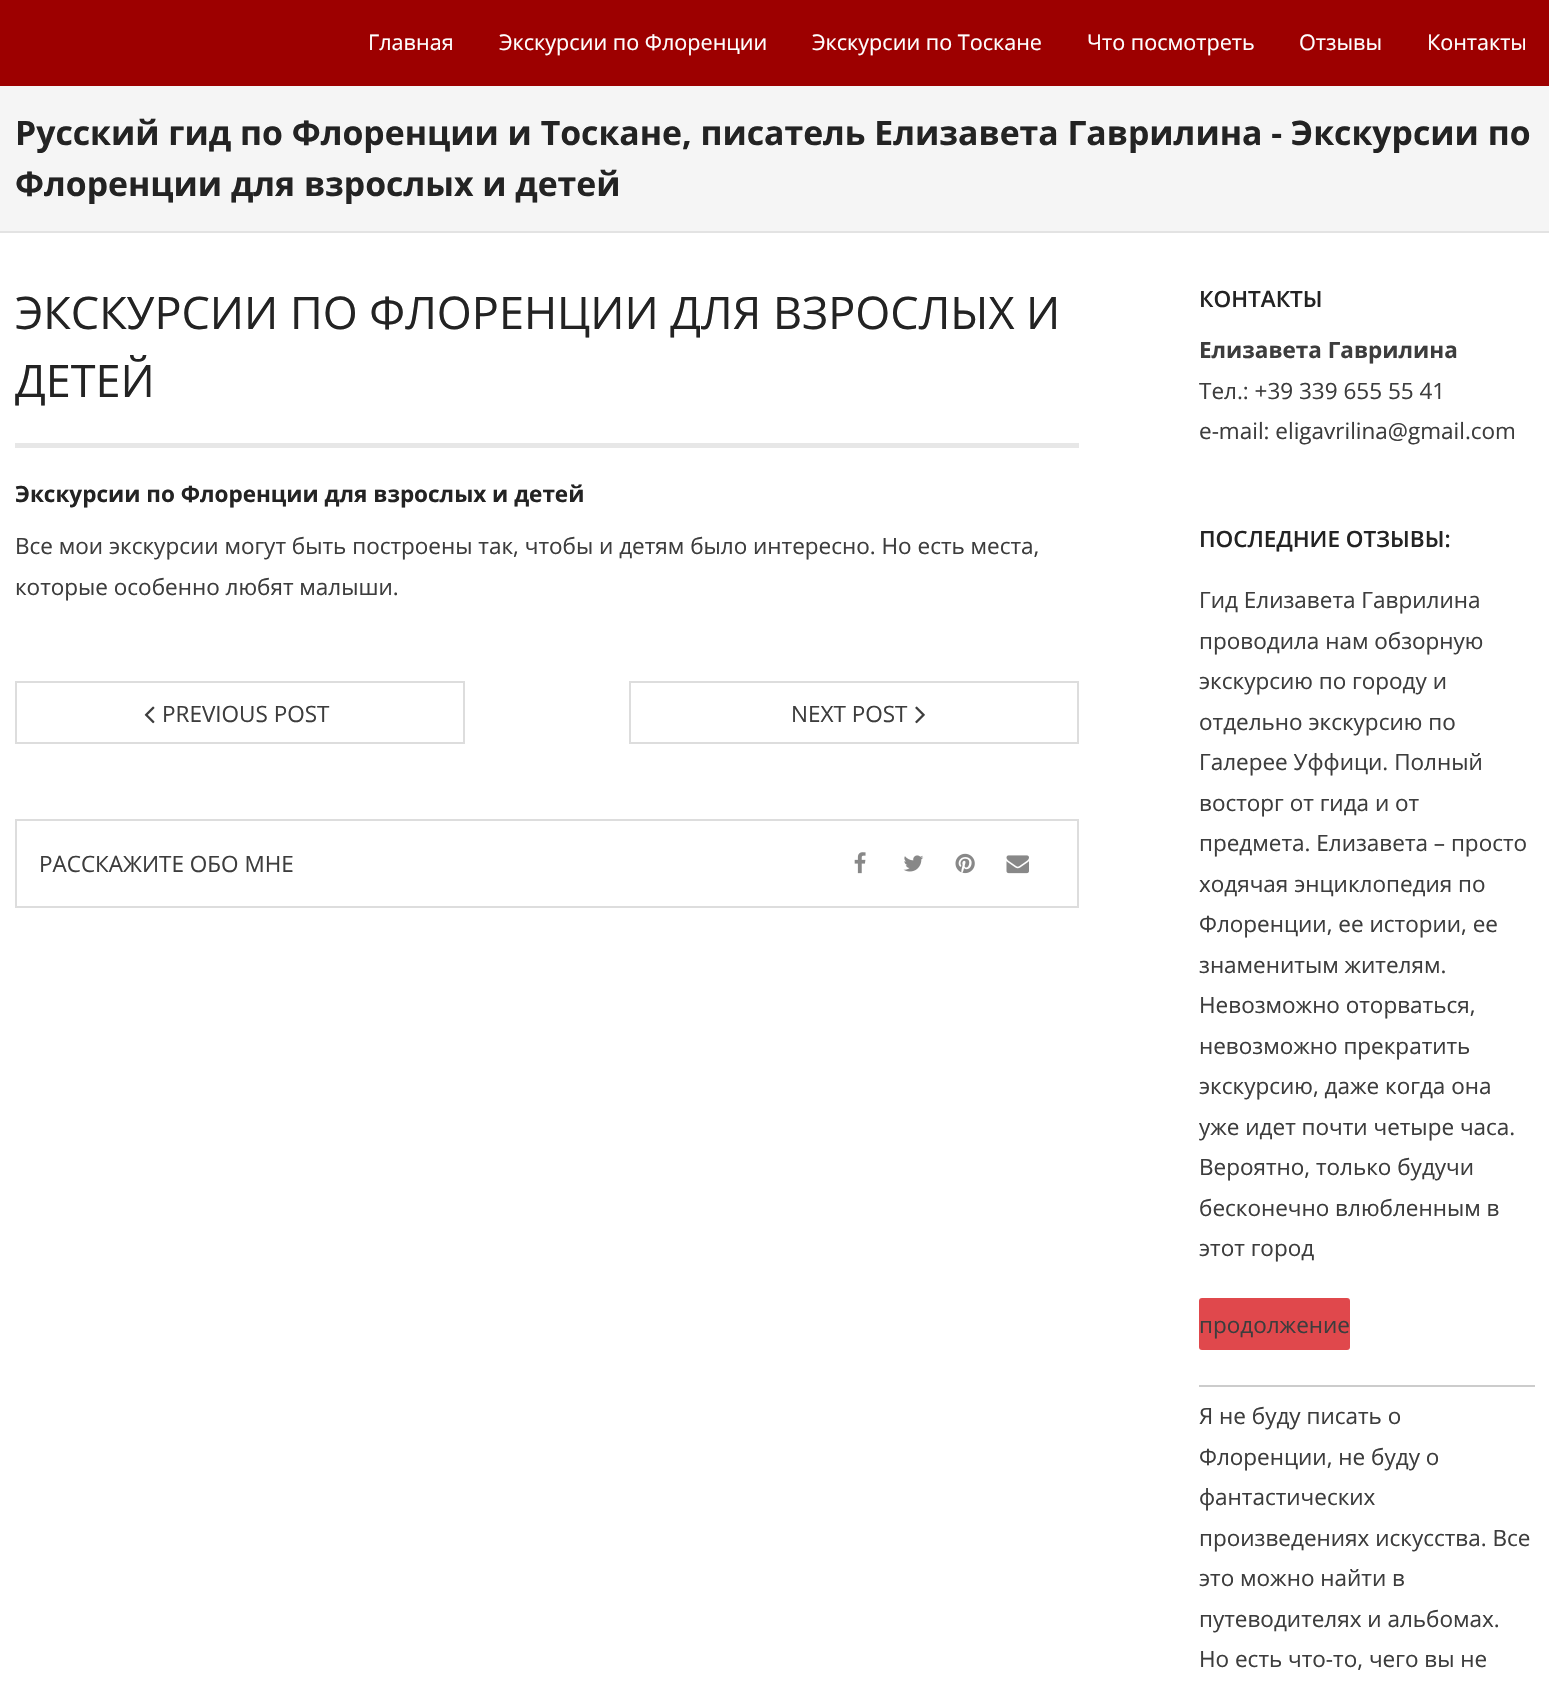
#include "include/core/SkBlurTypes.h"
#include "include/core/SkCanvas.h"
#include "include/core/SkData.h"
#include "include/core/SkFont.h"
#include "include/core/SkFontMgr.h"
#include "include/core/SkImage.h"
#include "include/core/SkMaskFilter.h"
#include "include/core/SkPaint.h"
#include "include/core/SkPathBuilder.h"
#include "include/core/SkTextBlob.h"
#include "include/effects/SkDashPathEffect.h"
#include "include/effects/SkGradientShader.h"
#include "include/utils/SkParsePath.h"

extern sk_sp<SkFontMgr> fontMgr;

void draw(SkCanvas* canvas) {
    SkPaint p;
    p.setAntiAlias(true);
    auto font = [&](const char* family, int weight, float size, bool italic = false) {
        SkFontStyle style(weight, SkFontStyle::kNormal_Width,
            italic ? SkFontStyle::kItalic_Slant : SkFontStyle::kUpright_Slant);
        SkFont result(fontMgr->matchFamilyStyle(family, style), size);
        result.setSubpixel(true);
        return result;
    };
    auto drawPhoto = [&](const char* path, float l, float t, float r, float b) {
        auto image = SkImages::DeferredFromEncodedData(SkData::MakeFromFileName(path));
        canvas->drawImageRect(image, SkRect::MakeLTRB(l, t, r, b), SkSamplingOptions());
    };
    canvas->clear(0xFFFFFFFF);
    p.setColor(0xFF9D0000);
    canvas->drawRect(SkRect::MakeLTRB(0, 0, 1549, 86), p);
    auto font1 = font("Open Sans", 400, 21.6f);
    p.setColor(0xFFFFFFFF);
    {
        const struct { const char* s; float x, y; } items[] = {
            {"Главная", 368, 50},
            {"Экскурсии по Флоренции", 499, 50},
            {"Экскурсии по Тоскане", 812, 50},
            {"Что посмотреть", 1087, 50},
            {"Отзывы", 1299, 50},
            {"Контакты", 1427, 50},
        };
        for (auto [s, x, y] : items) {
            canvas->drawString(s, x, y, font1, p);
        }
    }
    p.setColor(0xFFF5F5F5);
    canvas->drawRect(SkRect::MakeLTRB(0, 86, 1549, 231), p);
    p.setColor(0xFFE3E3E3);
    canvas->drawRect(SkRect::MakeLTRB(0, 231, 1549, 233), p);
    auto font2 = font("Open Sans", 700, 33.75f);
    p.setColor(0xFF232323);
    canvas->drawString("Русский гид по Флоренции и Тоскане, писатель Елизавета Гаврилина - Экскурсии по", 15, 145, font2, p);
    canvas->drawString("Флоренции для взрослых и детей", 15, 196, font2, p);
    p.setColor(0xFFE7E7E7);
    canvas->drawRect(SkRect::MakeLTRB(15, 443, 1079, 448), p);
    auto font3 = font("Open Sans", 400, 45);
    p.setColor(0xFF232323);
    canvas->drawString("ЭКСКУРСИИ ПО ФЛОРЕНЦИИ ДЛЯ ВЗРОСЛЫХ И", 15, 329, font3, p);
    canvas->drawString("ДЕТЕЙ", 15, 397, font3, p);
    auto font4 = font("Open Sans", 700, 22.5f);
    canvas->drawString("Экскурсии по Флоренции для взрослых и детей", 15, 502, font4, p);
    auto font5 = font("Open Sans", 400, 22.5f);
    p.setColor(0xFF3D3D3D);
    canvas->drawString("Все мои экскурсии могут быть построены так, чтобы и детям было интересно. Но есть места,", 15, 554, font5, p);
    canvas->drawString("которые особенно любят малыши.", 15, 595, font5, p);
    p.setStyle(SkPaint::kStroke_Style);
    p.setStrokeWidth(2);
    p.setColor(0xFFDDDDDD);
    canvas->drawRect(SkRect::MakeLTRB(16, 682, 464, 743), p);
    drawPhoto("media/1.png", 144, 706, 155, 724);
    p.setStyle(SkPaint::kFill_Style);
    p.setColor(0xFF3D3D3D);
    canvas->drawString("PREVIOUS POST", 162, 722, font5, p);
    p.setStyle(SkPaint::kStroke_Style);
    p.setColor(0xFFDDDDDD);
    canvas->drawRect(SkRect::MakeLTRB(630, 682, 1078, 743), p);
    p.setStyle(SkPaint::kFill_Style);
    p.setColor(0xFF3D3D3D);
    canvas->drawString("NEXT POST", 791, 722, font5, p);
    drawPhoto("media/2.png", 915, 706, 925, 724);
    p.setStyle(SkPaint::kStroke_Style);
    p.setColor(0xFFDDDDDD);
    canvas->drawRect(SkRect::MakeLTRB(16, 820, 1078, 907), p);
    p.setStyle(SkPaint::kFill_Style);
    p.setColor(0xFF3D3D3D);
    canvas->drawString("РАССКАЖИТЕ ОБО МНЕ", 39, 872, font5, p);
    drawPhoto("media/3.png", 854, 852, 866, 874);
    drawPhoto("media/4.png", 903, 855, 924, 872);
    drawPhoto("media/5.png", 955, 853, 975, 874);
    drawPhoto("media/6.png", 1006, 855, 1029, 874);
    auto font6 = font("Open Sans", 600, 22.5f);
    p.setColor(0xFF232323);
    canvas->drawString("КОНТАКТЫ", 1199, 307, font6, p);
    p.setColor(0xFF3D3D3D);
    canvas->drawString("Елизавета Гаврилина", 1199, 358, font4, p);
    canvas->drawString("Тел.: +39 339 655 55 41", 1199, 399, font5, p);
    canvas->drawString("e-mail: eligavrilina@gmail.com", 1199, 439, font5, p);
    p.setColor(0xFF232323);
    canvas->drawString("ПОСЛЕДНИЕ ОТЗЫВЫ:", 1199, 547, font6, p);
    p.setColor(0xFFCCCCCC);
    canvas->drawRect(SkRect::MakeLTRB(1199, 1385, 1535, 1387), p);
    p.setColor(0xFF3D3D3D);
    {
        const struct { const char* s; float x, y; } items[] = {
            {"Гид Елизавета Гаврилина", 1199, 608},
            {"проводила нам обзорную", 1199, 649},
            {"экскурсию по городу и", 1199, 689},
            {"отдельно экскурсию по", 1199, 730},
            {"Галерее Уффици. Полный", 1199, 770},
            {"восторг от гида и от", 1199, 811},
            {"предмета. Елизавета – просто", 1199, 851},
            {"ходячая энциклопедия по", 1199, 892},
            {"Флоренции, ее истории, ее", 1199, 932},
            {"знаменитым жителям.", 1199, 973},
            {"Невозможно оторваться,", 1199, 1013},
            {"невозможно прекратить", 1199, 1054},
            {"экскурсию, даже когда она", 1199, 1094},
            {"уже идет почти четыре часа.", 1199, 1135},
            {"Вероятно, только будучи", 1199, 1175},
            {"бесконечно влюбленным в", 1199, 1216},
            {"этот город", 1199, 1256},
        };
        for (auto [s, x, y] : items) {
            canvas->drawString(s, x, y, font5, p);
        }
    }
    p.setColor(0xFFE0484C);
    canvas->drawRoundRect(SkRect::MakeLTRB(1199, 1298, 1350, 1350), 3, 3, p);
    p.setColor(0xFF3D3D3D);
    {
        const struct { const char* s; float x, y; } items[] = {
            {"продолжение", 1199, 1333},
            {"Я не буду писать о", 1199, 1424},
            {"Флоренции, не буду о", 1199, 1465},
            {"фантастических", 1199, 1505},
            {"произведениях искусства. Все", 1199, 1546},
            {"это можно найти в", 1199, 1586},
            {"путеводителях и альбомах.", 1199, 1627},
            {"Но есть что-то, чего вы не", 1199, 1667},
        };
        for (auto [s, x, y] : items) {
            canvas->drawString(s, x, y, font5, p);
        }
    }
}
